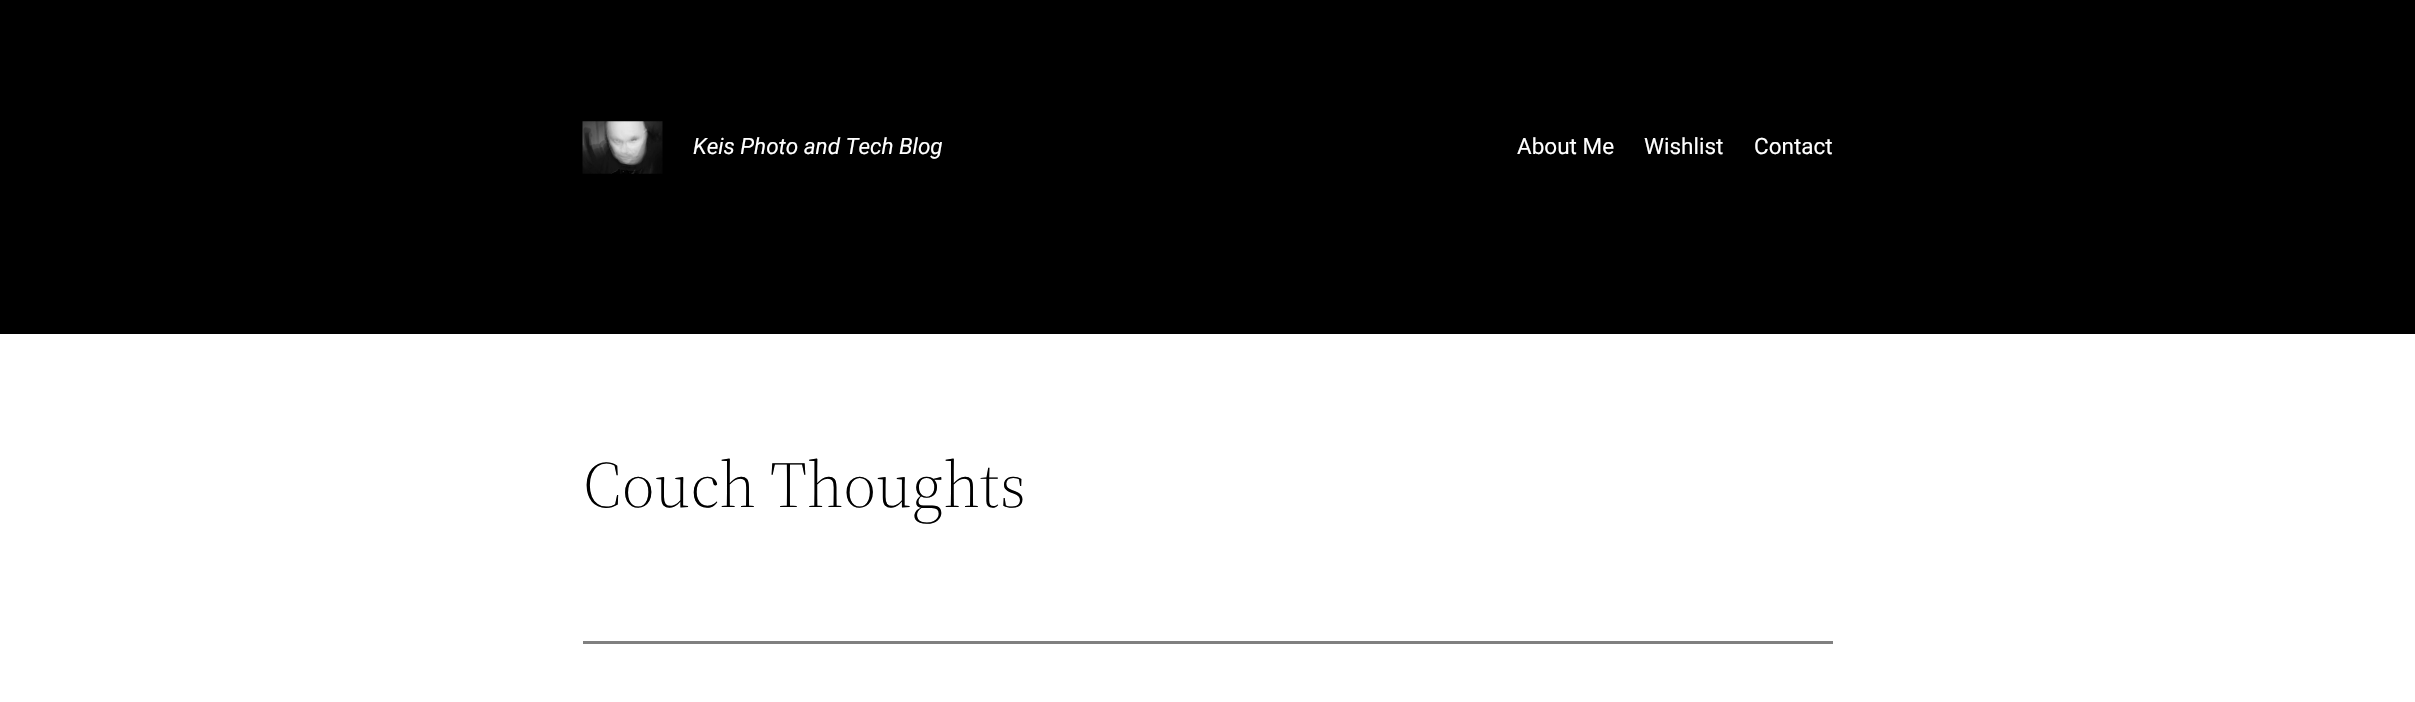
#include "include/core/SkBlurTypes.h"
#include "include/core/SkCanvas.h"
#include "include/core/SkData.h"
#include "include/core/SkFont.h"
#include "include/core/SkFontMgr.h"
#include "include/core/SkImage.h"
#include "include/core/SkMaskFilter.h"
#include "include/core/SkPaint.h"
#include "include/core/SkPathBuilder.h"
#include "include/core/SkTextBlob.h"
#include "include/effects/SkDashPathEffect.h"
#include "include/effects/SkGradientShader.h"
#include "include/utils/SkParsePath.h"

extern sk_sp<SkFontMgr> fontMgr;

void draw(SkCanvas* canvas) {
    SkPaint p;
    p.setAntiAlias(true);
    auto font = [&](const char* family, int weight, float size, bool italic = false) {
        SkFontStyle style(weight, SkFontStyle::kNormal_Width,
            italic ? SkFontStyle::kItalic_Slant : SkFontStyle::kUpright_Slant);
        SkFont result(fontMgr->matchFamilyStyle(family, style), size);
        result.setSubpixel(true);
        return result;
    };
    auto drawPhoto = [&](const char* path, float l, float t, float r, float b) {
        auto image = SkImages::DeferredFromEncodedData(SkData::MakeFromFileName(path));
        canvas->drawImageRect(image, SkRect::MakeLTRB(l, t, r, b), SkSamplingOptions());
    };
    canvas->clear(0xFFFFFFFF);
    p.setColor(0xFF000000);
    canvas->drawRect(SkRect::MakeLTRB(0, 0, 2415, 334), p);
    drawPhoto("media/1.png", 582, 121, 663, 174);
    auto font1 = font("Roboto", 400, 22.5f, true);
    p.setColor(0xFFFFFFFF);
    canvas->drawString("Keis Photo and Tech Blog", 693, 154, font1, p);
    auto font2 = font("Roboto", 400, 22.5f);
    {
        const struct { const char* s; float x, y; } items[] = {
            {"About Me", 1517, 154},
            {"Wishlist", 1644, 154},
            {"Contact", 1754, 154},
        };
        for (auto [s, x, y] : items) {
            canvas->drawString(s, x, y, font2, p);
        }
    }
    auto font3 = font("Source Serif 4", 300, 65);
    p.setColor(0xFF000000);
    canvas->drawString("Couch Thoughts", 583, 507, font3, p);
    p.setColor(0xFF808080);
    canvas->drawRect(SkRect::MakeLTRB(583, 641, 1833, 644), p);
}
